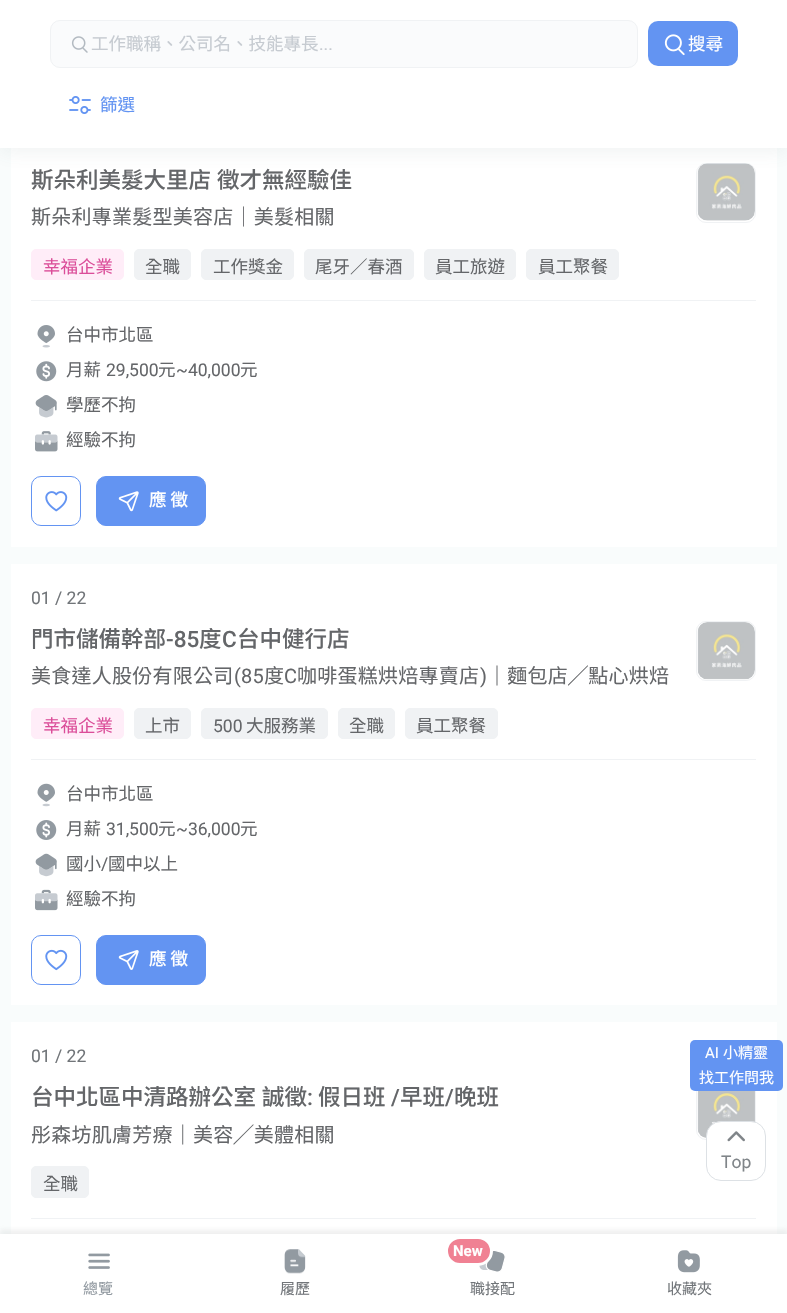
#include "include/core/SkBlurTypes.h"
#include "include/core/SkCanvas.h"
#include "include/core/SkData.h"
#include "include/core/SkFont.h"
#include "include/core/SkFontMgr.h"
#include "include/core/SkImage.h"
#include "include/core/SkMaskFilter.h"
#include "include/core/SkPaint.h"
#include "include/core/SkPathBuilder.h"
#include "include/core/SkTextBlob.h"
#include "include/effects/SkDashPathEffect.h"
#include "include/effects/SkGradientShader.h"
#include "include/utils/SkParsePath.h"

extern sk_sp<SkFontMgr> fontMgr;

void draw(SkCanvas* canvas) {
    SkPaint p;
    p.setAntiAlias(true);
    auto font = [&](const char* family, int weight, float size, bool italic = false) {
        SkFontStyle style(weight, SkFontStyle::kNormal_Width,
            italic ? SkFontStyle::kItalic_Slant : SkFontStyle::kUpright_Slant);
        SkFont result(fontMgr->matchFamilyStyle(family, style), size);
        result.setSubpixel(true);
        return result;
    };
    auto drawTracked = [&](const char* s, float x, float y, const SkFont& font, const SkPaint& ink, float letter, float word) {
        std::vector<SkGlyphID> glyphs(font.countText(s, strlen(s), SkTextEncoding::kUTF8));
        std::vector<float> xs(glyphs.size());
        font.textToGlyphs(s, strlen(s), SkTextEncoding::kUTF8, glyphs);
        font.getXPos(glyphs, xs, x);
        float extra = 0;
        for (size_t i = 0; i < glyphs.size(); i++) {
            xs[i] += extra;
            extra += letter + word * (glyphs[i] == font.unicharToGlyph(' '));
        }
        canvas->drawTextBlob(SkTextBlob::MakeFromPosHGlyphs(glyphs, xs, y, font), 0, 0, ink);
    };
    auto drawPhoto = [&](const char* path, float l, float t, float r, float b) {
        auto image = SkImages::DeferredFromEncodedData(SkData::MakeFromFileName(path));
        canvas->drawImageRect(image, SkRect::MakeLTRB(l, t, r, b), SkSamplingOptions());
    };
    canvas->clear(0xFFF9FCFC);
    p.setColor(0xFFFFFFFF);
    canvas->drawRect(SkRect::MakeLTRB(11, 148, 777, 547), p);
    p.setStyle(SkPaint::kStroke_Style);
    p.setStrokeWidth(1);
    p.setColor(0xFFF0F2F4);
    canvas->drawRoundRect(SkRect::MakeLTRB(696.5f, 163.5f, 755.5f, 222.5f), 9.5f, 9.5f, p);
    drawPhoto("media/4.png", 697, 163, 755, 221);
    p.setStyle(SkPaint::kFill_Style);
    p.setColor(0x1A4D6E6E);
    p.setMaskFilter(SkMaskFilter::MakeBlur(kNormal_SkBlurStyle, 10));
    canvas->drawRect(SkRect::MakeLTRB(0, 3, 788, 150), p);
    p.setMaskFilter(nullptr);
    p.setColor(0xFFFFFFFF);
    canvas->drawRect(SkRect::MakeLTRB(0, 0, 787, 148), p);
    p.setColor(0xFFFAFBFC);
    canvas->drawRoundRect(SkRect::MakeLTRB(50.5f, 20.5f, 637.5f, 67.5f), 9.5f, 9.5f, p);
    p.setStyle(SkPaint::kStroke_Style);
    p.setColor(0xFFF0F2F4);
    canvas->drawRoundRect(SkRect::MakeLTRB(50.5f, 20.5f, 637.5f, 67.5f), 9.5f, 9.5f, p);
    drawPhoto("media/1.png", 71, 36, 88, 53);
    auto font1 = font("Noto Sans TC", 400, 17.5f);
    p.setStyle(SkPaint::kFill_Style);
    p.setColor(0xFFC6CBD1);
    canvas->drawString("工作職稱、公司名、技能專長", 91, 50, font1, p);
    auto font2 = font("Roboto", 400, 17.5f);
    canvas->drawString("...", 319, 50, font2, p);
    p.setColor(0xFF6394F2);
    canvas->drawRoundRect(SkRect::MakeLTRB(648, 21, 738, 66), 10, 10, p);
    drawPhoto("media/2.png", 664, 34, 685, 56);
    p.setColor(0xFFFFFFFF);
    canvas->drawString("搜尋", 688, 50, font1, p);
    drawPhoto("media/3.png", 69, 96, 91, 114);
    p.setColor(0xFF6394F2);
    canvas->drawString("篩選", 100, 111, font1, p);
    auto font3 = font("Noto Sans TC", 500, 22.5f);
    p.setColor(0xFF646669);
    drawTracked("斯朵利美髮大里店 徵才無經驗佳", 31, 188, font3, p, 0, 1);
    auto font4 = font("Noto Sans TC", 400, 20);
    drawTracked("斯朵利專業髮型美容店｜美髮相關", 31, 224, font4, p, 0.25f, 0);
    p.setColor(0xFFFFEDF8);
    canvas->drawRoundRect(SkRect::MakeLTRB(31.5f, 249.5f, 123.5f, 279.5f), 4.5f, 4.5f, p);
    p.setStyle(SkPaint::kStroke_Style);
    canvas->drawRoundRect(SkRect::MakeLTRB(31.5f, 249.5f, 123.5f, 279.5f), 4.5f, 4.5f, p);
    p.setStyle(SkPaint::kFill_Style);
    p.setColor(0xFFDB4D99);
    canvas->drawString("幸福企業", 43, 273, font1, p);
    p.setColor(0xFFF0F2F4);
    canvas->drawRoundRect(SkRect::MakeLTRB(134.5f, 249.5f, 190.5f, 279.5f), 4.5f, 4.5f, p);
    p.setStyle(SkPaint::kStroke_Style);
    canvas->drawRoundRect(SkRect::MakeLTRB(134.5f, 249.5f, 190.5f, 279.5f), 4.5f, 4.5f, p);
    p.setStyle(SkPaint::kFill_Style);
    p.setColor(0xFF646669);
    canvas->drawString("全職", 145, 273, font1, p);
    p.setColor(0xFFF0F2F4);
    canvas->drawRoundRect(SkRect::MakeLTRB(201.5f, 249.5f, 293.5f, 279.5f), 4.5f, 4.5f, p);
    p.setStyle(SkPaint::kStroke_Style);
    canvas->drawRoundRect(SkRect::MakeLTRB(201.5f, 249.5f, 293.5f, 279.5f), 4.5f, 4.5f, p);
    p.setStyle(SkPaint::kFill_Style);
    p.setColor(0xFF646669);
    canvas->drawString("工作獎金", 213, 273, font1, p);
    p.setColor(0xFFF0F2F4);
    canvas->drawRoundRect(SkRect::MakeLTRB(304.5f, 249.5f, 413.5f, 279.5f), 4.5f, 4.5f, p);
    p.setStyle(SkPaint::kStroke_Style);
    canvas->drawRoundRect(SkRect::MakeLTRB(304.5f, 249.5f, 413.5f, 279.5f), 4.5f, 4.5f, p);
    p.setStyle(SkPaint::kFill_Style);
    p.setColor(0xFF646669);
    canvas->drawString("尾牙／春酒", 315, 273, font1, p);
    p.setColor(0xFFF0F2F4);
    canvas->drawRoundRect(SkRect::MakeLTRB(424.5f, 249.5f, 515.5f, 279.5f), 4.5f, 4.5f, p);
    p.setStyle(SkPaint::kStroke_Style);
    canvas->drawRoundRect(SkRect::MakeLTRB(424.5f, 249.5f, 515.5f, 279.5f), 4.5f, 4.5f, p);
    p.setStyle(SkPaint::kFill_Style);
    p.setColor(0xFF646669);
    canvas->drawString("員工旅遊", 435, 273, font1, p);
    p.setColor(0xFFF0F2F4);
    canvas->drawRoundRect(SkRect::MakeLTRB(526.5f, 249.5f, 618.5f, 279.5f), 4.5f, 4.5f, p);
    p.setStyle(SkPaint::kStroke_Style);
    canvas->drawRoundRect(SkRect::MakeLTRB(526.5f, 249.5f, 618.5f, 279.5f), 4.5f, 4.5f, p);
    p.setStyle(SkPaint::kFill_Style);
    p.setColor(0xFF646669);
    canvas->drawString("員工聚餐", 538, 273, font1, p);
    p.setColor(0xFFF0F2F4);
    canvas->drawRect(SkRect::MakeLTRB(31, 300, 756, 301), p);
    drawPhoto("media/5.png", 37, 325, 55, 348);
    p.setColor(0xFF646669);
    canvas->drawString("台中市北區", 66, 341, font1, p);
    drawPhoto("media/6.png", 36, 361, 57, 382);
    canvas->drawString("月薪", 66, 376, font1, p);
    canvas->drawString("29,500", 106, 376, font2, p);
    canvas->drawString("元", 158, 376, font1, p);
    canvas->drawString("~40,000", 176, 376, font2, p);
    canvas->drawString("元", 240, 376, font1, p);
    drawPhoto("media/7.png", 35, 395, 57, 418);
    canvas->drawString("學歷不拘", 66, 411, font1, p);
    drawPhoto("media/8.png", 35, 431, 58, 452);
    canvas->drawString("經驗不拘", 66, 446, font1, p);
    p.setStyle(SkPaint::kStroke_Style);
    p.setColor(0xFF6394F2);
    canvas->drawRoundRect(SkRect::MakeLTRB(31.5f, 476.5f, 80.5f, 525.5f), 9.5f, 9.5f, p);
    drawPhoto("media/9.png", 45, 491, 68, 512);
    p.setStyle(SkPaint::kFill_Style);
    canvas->drawRoundRect(SkRect::MakeLTRB(96.5f, 476.5f, 205.5f, 525.5f), 9.5f, 9.5f, p);
    p.setStyle(SkPaint::kStroke_Style);
    canvas->drawRoundRect(SkRect::MakeLTRB(96.5f, 476.5f, 205.5f, 525.5f), 9.5f, 9.5f, p);
    drawPhoto("media/10.png", 118, 491, 139, 512);
    auto font5 = font("Noto Sans TC", 500, 17.5f);
    p.setStyle(SkPaint::kFill_Style);
    p.setColor(0xFFFFFFFF);
    canvas->drawString("應 徵", 149, 506, font5, p);
    canvas->drawRect(SkRect::MakeLTRB(11, 564, 777, 1005), p);
    p.setColor(0xFF717579);
    canvas->drawString("01 / 22", 31, 604, font2, p);
    p.setColor(0xFF646669);
    canvas->drawString("門市儲備幹部", 31, 647, font3, p);
    auto font6 = font("Roboto", 500, 22.5f);
    canvas->drawString("-85", 166, 647, font6, p);
    canvas->drawString("度", 199, 647, font3, p);
    canvas->drawString("C", 222, 647, font6, p);
    canvas->drawString("台中健行店", 237, 647, font3, p);
    drawTracked("美食達人股份有限公司", 31, 683, font4, p, 0.25f, 0);
    auto font7 = font("Roboto", 400, 20);
    drawTracked("(85", 234, 683, font7, p, 0.25f, 0);
    drawTracked("度", 264, 683, font4, p, 0.25f, 0);
    drawTracked("C", 284, 683, font7, p, 0.25f, 0);
    drawTracked("咖啡蛋糕烘焙專賣店", 297, 683, font4, p, 0.25f, 0);
    drawTracked(")", 480, 683, font7, p, 0.25f, 0);
    drawTracked("｜麵包店╱點心烘焙", 487, 683, font4, p, 0.25f, 0);
    p.setStyle(SkPaint::kStroke_Style);
    p.setColor(0xFFF0F2F4);
    canvas->drawRoundRect(SkRect::MakeLTRB(696.5f, 621.5f, 755.5f, 680.5f), 9.5f, 9.5f, p);
    drawPhoto("media/11.png", 697, 622, 755, 680);
    p.setStyle(SkPaint::kFill_Style);
    p.setColor(0xFFFFEDF8);
    canvas->drawRoundRect(SkRect::MakeLTRB(31.5f, 708.5f, 123.5f, 738.5f), 4.5f, 4.5f, p);
    p.setStyle(SkPaint::kStroke_Style);
    canvas->drawRoundRect(SkRect::MakeLTRB(31.5f, 708.5f, 123.5f, 738.5f), 4.5f, 4.5f, p);
    p.setStyle(SkPaint::kFill_Style);
    p.setColor(0xFFDB4D99);
    canvas->drawString("幸福企業", 43, 732, font1, p);
    p.setColor(0xFFF0F2F4);
    canvas->drawRoundRect(SkRect::MakeLTRB(134.5f, 708.5f, 190.5f, 738.5f), 4.5f, 4.5f, p);
    p.setStyle(SkPaint::kStroke_Style);
    canvas->drawRoundRect(SkRect::MakeLTRB(134.5f, 708.5f, 190.5f, 738.5f), 4.5f, 4.5f, p);
    p.setStyle(SkPaint::kFill_Style);
    p.setColor(0xFF646669);
    canvas->drawString("上市", 145, 732, font1, p);
    p.setColor(0xFFF0F2F4);
    canvas->drawRoundRect(SkRect::MakeLTRB(201.5f, 708.5f, 327.5f, 738.5f), 4.5f, 4.5f, p);
    p.setStyle(SkPaint::kStroke_Style);
    canvas->drawRoundRect(SkRect::MakeLTRB(201.5f, 708.5f, 327.5f, 738.5f), 4.5f, 4.5f, p);
    p.setStyle(SkPaint::kFill_Style);
    p.setColor(0xFF646669);
    canvas->drawString("500", 213, 732, font2, p);
    canvas->drawString("大服務業", 246, 732, font1, p);
    p.setColor(0xFFF0F2F4);
    canvas->drawRoundRect(SkRect::MakeLTRB(338.5f, 708.5f, 394.5f, 738.5f), 4.5f, 4.5f, p);
    p.setStyle(SkPaint::kStroke_Style);
    canvas->drawRoundRect(SkRect::MakeLTRB(338.5f, 708.5f, 394.5f, 738.5f), 4.5f, 4.5f, p);
    p.setStyle(SkPaint::kFill_Style);
    p.setColor(0xFF646669);
    canvas->drawString("全職", 349, 732, font1, p);
    p.setColor(0xFFF0F2F4);
    canvas->drawRoundRect(SkRect::MakeLTRB(405.5f, 708.5f, 497.5f, 738.5f), 4.5f, 4.5f, p);
    p.setStyle(SkPaint::kStroke_Style);
    canvas->drawRoundRect(SkRect::MakeLTRB(405.5f, 708.5f, 497.5f, 738.5f), 4.5f, 4.5f, p);
    p.setStyle(SkPaint::kFill_Style);
    p.setColor(0xFF646669);
    canvas->drawString("員工聚餐", 416, 732, font1, p);
    p.setColor(0xFFF0F2F4);
    canvas->drawRect(SkRect::MakeLTRB(31, 759, 756, 760), p);
    drawPhoto("media/12.png", 37, 783, 55, 807);
    p.setColor(0xFF646669);
    canvas->drawString("台中市北區", 66, 800, font1, p);
    drawPhoto("media/13.png", 36, 820, 57, 840);
    canvas->drawString("月薪", 66, 835, font1, p);
    canvas->drawString("31,500", 106, 835, font2, p);
    canvas->drawString("元", 158, 835, font1, p);
    canvas->drawString("~36,000", 176, 835, font2, p);
    canvas->drawString("元", 240, 835, font1, p);
    drawPhoto("media/14.png", 35, 853, 57, 877);
    canvas->drawString("國小", 66, 870, font1, p);
    canvas->drawString("/", 101, 870, font2, p);
    canvas->drawString("國中以上", 108, 870, font1, p);
    drawPhoto("media/15.png", 35, 889, 58, 911);
    canvas->drawString("經驗不拘", 66, 905, font1, p);
    p.setStyle(SkPaint::kStroke_Style);
    p.setColor(0xFF6394F2);
    canvas->drawRoundRect(SkRect::MakeLTRB(31.5f, 935.5f, 80.5f, 984.5f), 9.5f, 9.5f, p);
    drawPhoto("media/16.png", 45, 949, 68, 971);
    p.setStyle(SkPaint::kFill_Style);
    canvas->drawRoundRect(SkRect::MakeLTRB(96.5f, 935.5f, 205.5f, 984.5f), 9.5f, 9.5f, p);
    p.setStyle(SkPaint::kStroke_Style);
    canvas->drawRoundRect(SkRect::MakeLTRB(96.5f, 935.5f, 205.5f, 984.5f), 9.5f, 9.5f, p);
    drawPhoto("media/17.png", 118, 950, 139, 970);
    p.setStyle(SkPaint::kFill_Style);
    p.setColor(0xFFFFFFFF);
    canvas->drawString("應 徵", 149, 965, font5, p);
    canvas->drawRect(SkRect::MakeLTRB(11, 1022, 777, 1234), p);
    p.setColor(0xFF717579);
    canvas->drawString("01 / 22", 31, 1062, font2, p);
    p.setColor(0xFF646669);
    drawTracked("台中北區中清路辦公室 誠徵", 31, 1105, font3, p, 0, 1);
    canvas->drawString(":", 307, 1105, font6, p);
    canvas->drawString("假日班", 318, 1105, font3, p);
    canvas->drawString("/", 391, 1105, font6, p);
    canvas->drawString("早班", 400, 1105, font3, p);
    canvas->drawString("/", 445, 1105, font6, p);
    canvas->drawString("晚班", 454, 1105, font3, p);
    drawTracked("彤森坊肌膚芳療｜美容╱美體相關", 31, 1142, font4, p, 0.25f, 0);
    p.setStyle(SkPaint::kStroke_Style);
    p.setColor(0xFFF0F2F4);
    canvas->drawRoundRect(SkRect::MakeLTRB(696.5f, 1080.5f, 755.5f, 1139.5f), 9.5f, 9.5f, p);
    drawPhoto("media/18.png", 697, 1091, 755, 1138);
    p.setStyle(SkPaint::kFill_Style);
    canvas->drawRoundRect(SkRect::MakeLTRB(31.5f, 1166.5f, 88.5f, 1197.5f), 4.5f, 4.5f, p);
    p.setStyle(SkPaint::kStroke_Style);
    canvas->drawRoundRect(SkRect::MakeLTRB(31.5f, 1166.5f, 88.5f, 1197.5f), 4.5f, 4.5f, p);
    p.setStyle(SkPaint::kFill_Style);
    p.setColor(0xFF646669);
    canvas->drawString("全職", 43, 1190, font1, p);
    p.setColor(0xFFF0F2F4);
    canvas->drawRect(SkRect::MakeLTRB(31, 1218, 756, 1219), p);
    p.setColor(0x45C3C3C3);
    p.setMaskFilter(SkMaskFilter::MakeBlur(kNormal_SkBlurStyle, 2.5f));
    canvas->drawRect(SkRect::MakeLTRB(0, 1230, 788, 1310), p);
    p.setMaskFilter(nullptr);
    p.setColor(0xFFFFFFFF);
    canvas->drawRect(SkRect::MakeLTRB(0, 1234, 787, 1313), p);
    drawPhoto("media/19.png", 88, 1253, 110, 1269);
    auto font8 = font("Noto Sans TC", 400, 15);
    p.setColor(0xFF929AA1);
    canvas->drawString("總覽", 83, 1294, font8, p);
    drawPhoto("media/20.png", 284, 1249, 306, 1274);
    p.setColor(0xFF717579);
    canvas->drawString("履歷", 280, 1294, font8, p);
    drawPhoto("media/21.png", 479, 1250, 506, 1272);
    p.setColor(0xFFF08193);
    canvas->drawRoundRect(SkRect::MakeLTRB(446.5f, 1237.5f, 491.5f, 1264.5f), 13.5f, 13.5f, p);
    p.setStyle(SkPaint::kStroke_Style);
    p.setStrokeWidth(3);
    p.setColor(0xFFFFFFFF);
    canvas->drawRoundRect(SkRect::MakeLTRB(446.5f, 1237.5f, 491.5f, 1264.5f), 13.5f, 13.5f, p);
    auto font9 = font("Roboto", 700, 15);
    p.setStyle(SkPaint::kFill_Style);
    canvas->drawString("New", 453, 1256, font9, p);
    p.setColor(0xFF717579);
    canvas->drawString("職接配", 470, 1294, font8, p);
    drawPhoto("media/22.png", 677, 1250, 700, 1273);
    canvas->drawString("收藏夾", 667, 1294, font8, p);
    p.setColor(0xFF6394F2);
    canvas->drawRoundRect(SkRect::MakeLTRB(690, 1040, 783, 1091), 5, 5, p);
    auto font10 = font("Roboto", 400, 15);
    p.setColor(0xFFFFFFFF);
    canvas->drawString("AI", 705, 1058, font10, p);
    canvas->drawString("小精靈", 723, 1058, font8, p);
    canvas->drawString("找工作問我", 699, 1083, font8, p);
    canvas->drawRoundRect(SkRect::MakeLTRB(706.5f, 1121.5f, 765.5f, 1180.5f), 14.5f, 14.5f, p);
    p.setStyle(SkPaint::kStroke_Style);
    p.setStrokeWidth(1);
    p.setColor(0xFFDDE1E5);
    canvas->drawRoundRect(SkRect::MakeLTRB(706.5f, 1121.5f, 765.5f, 1180.5f), 14.5f, 14.5f, p);
    drawPhoto("media/23.png", 727, 1131, 745, 1142);
    p.setStyle(SkPaint::kFill_Style);
    p.setColor(0xFF808589);
    canvas->drawString("Top", 721, 1168, font2, p);
}
